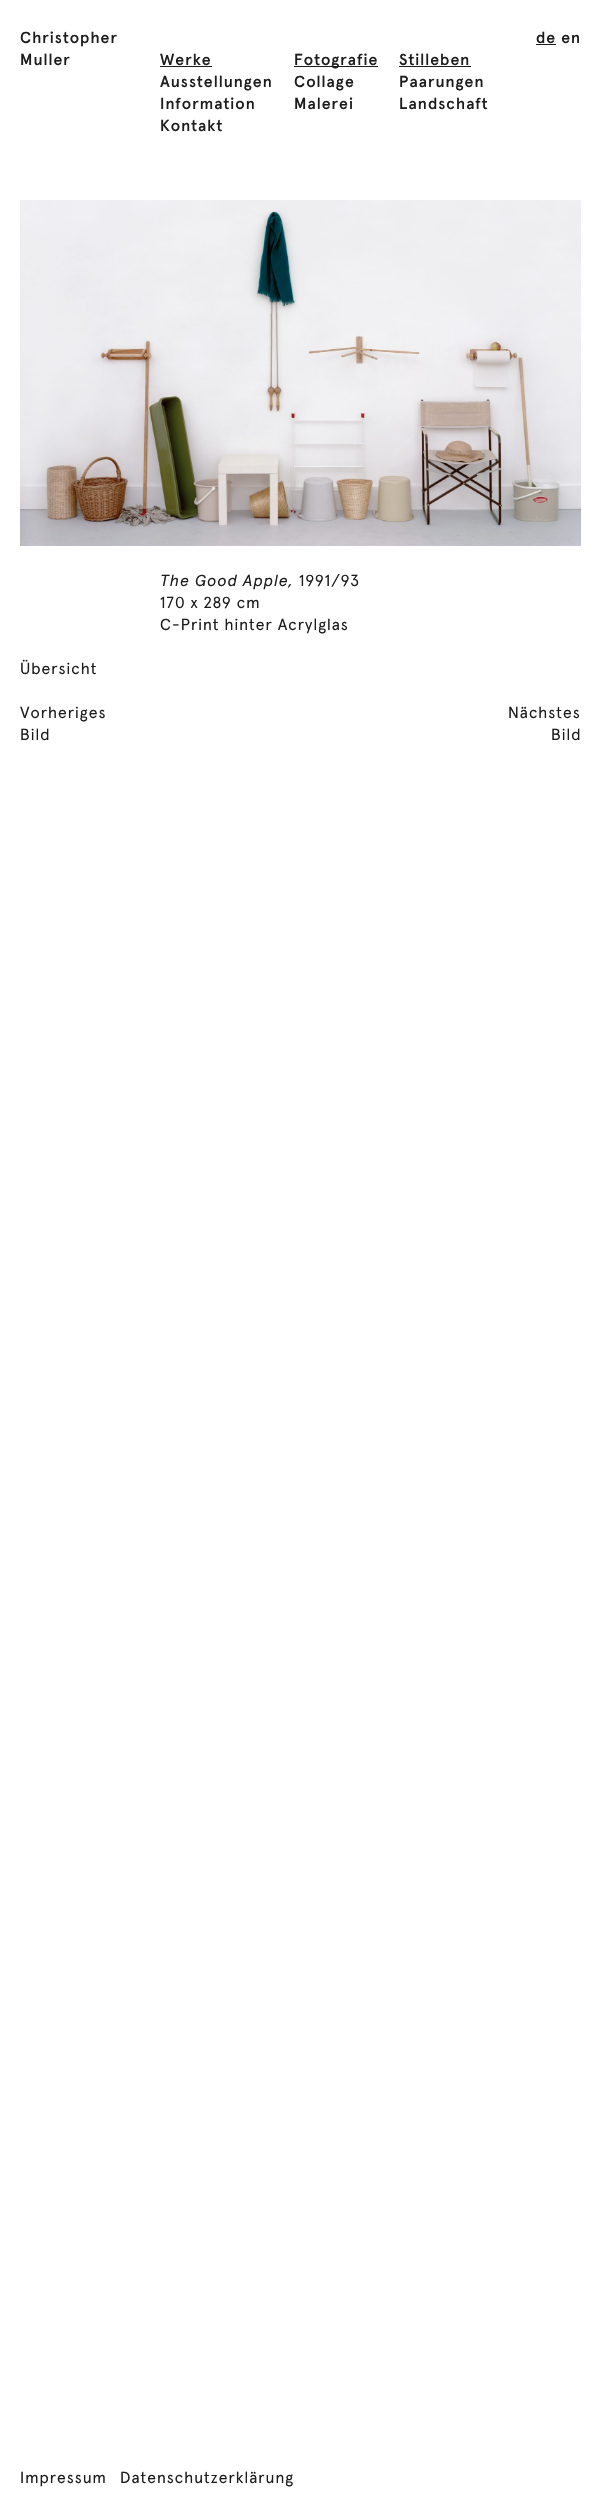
#include "include/core/SkBlurTypes.h"
#include "include/core/SkCanvas.h"
#include "include/core/SkData.h"
#include "include/core/SkFont.h"
#include "include/core/SkFontMgr.h"
#include "include/core/SkImage.h"
#include "include/core/SkMaskFilter.h"
#include "include/core/SkPaint.h"
#include "include/core/SkPathBuilder.h"
#include "include/core/SkTextBlob.h"
#include "include/effects/SkDashPathEffect.h"
#include "include/effects/SkGradientShader.h"
#include "include/utils/SkParsePath.h"

extern sk_sp<SkFontMgr> fontMgr;

void draw(SkCanvas* canvas) {
    SkPaint p;
    p.setAntiAlias(true);
    auto font = [&](const char* family, int weight, float size, bool italic = false) {
        SkFontStyle style(weight, SkFontStyle::kNormal_Width,
            italic ? SkFontStyle::kItalic_Slant : SkFontStyle::kUpright_Slant);
        SkFont result(fontMgr->matchFamilyStyle(family, style), size);
        result.setSubpixel(true);
        return result;
    };
    auto drawTracked = [&](const char* s, float x, float y, const SkFont& font, const SkPaint& ink, float letter, float word) {
        std::vector<SkGlyphID> glyphs(font.countText(s, strlen(s), SkTextEncoding::kUTF8));
        std::vector<float> xs(glyphs.size());
        font.textToGlyphs(s, strlen(s), SkTextEncoding::kUTF8, glyphs);
        font.getXPos(glyphs, xs, x);
        float extra = 0;
        for (size_t i = 0; i < glyphs.size(); i++) {
            xs[i] += extra;
            extra += letter + word * (glyphs[i] == font.unicharToGlyph(' '));
        }
        canvas->drawTextBlob(SkTextBlob::MakeFromPosHGlyphs(glyphs, xs, y, font), 0, 0, ink);
    };
    auto drawPhoto = [&](const char* path, float l, float t, float r, float b) {
        auto image = SkImages::DeferredFromEncodedData(SkData::MakeFromFileName(path));
        canvas->drawImageRect(image, SkRect::MakeLTRB(l, t, r, b), SkSamplingOptions());
    };
    canvas->clear(0xFFFFFFFF);
    auto font1 = font("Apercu", 500, 16);
    p.setColor(0xFF1D1D1D);
    {
        const struct { const char* s; float x, y; } items[] = {
            {"Christopher", 20, 43},
            {"Muller", 20, 65},
            {"de en", 536, 43},
        };
        for (auto [s, x, y] : items) {
            drawTracked(s, x, y, font1, p, 1, 0);
        }
    }
    canvas->drawRect(SkRect::MakeLTRB(536, 44, 556, 45), p);
    drawTracked("Werke", 160, 65, font1, p, 1, 0);
    canvas->drawRect(SkRect::MakeLTRB(160, 66, 212, 67), p);
    canvas->drawRect(SkRect::MakeLTRB(294, 66, 378, 67), p);
    drawTracked("Fotografie", 294, 65, font1, p, 1, 0);
    drawTracked("Stilleben", 399, 65, font1, p, 1, 0);
    canvas->drawRect(SkRect::MakeLTRB(399, 66, 471, 67), p);
    {
        const struct { const char* s; float x, y; } items[] = {
            {"Paarungen", 399, 87},
            {"Landschaft", 399, 109},
            {"Collage", 294, 87},
            {"Malerei", 294, 109},
            {"Ausstellungen", 160, 87},
            {"Information", 160, 109},
            {"Kontakt", 160, 131},
        };
        for (auto [s, x, y] : items) {
            drawTracked(s, x, y, font1, p, 1, 0);
        }
    }
    drawPhoto("media/1.png", 20, 200, 581, 546);
    auto font2 = font("Apercu", 400, 16, true);
    drawTracked("The Good Apple,", 160, 586, font2, p, 1, 0);
    auto font3 = font("Apercu", 400, 16);
    {
        const struct { const char* s; float x, y; } items[] = {
            {"1991/93", 299, 586},
            {"170 x 289 cm", 160, 608},
            {"C-Print hinter Acrylglas", 160, 630},
            {"Übersicht", 20, 674},
            {"Vorheriges", 20, 718},
            {"Bild", 20, 740},
            {"Nächstes", 508, 718},
            {"Bild", 551, 740},
            {"Impressum", 20, 2483},
            {"Datenschutzerklärung", 120, 2483},
        };
        for (auto [s, x, y] : items) {
            drawTracked(s, x, y, font3, p, 1, 0);
        }
    }
}
